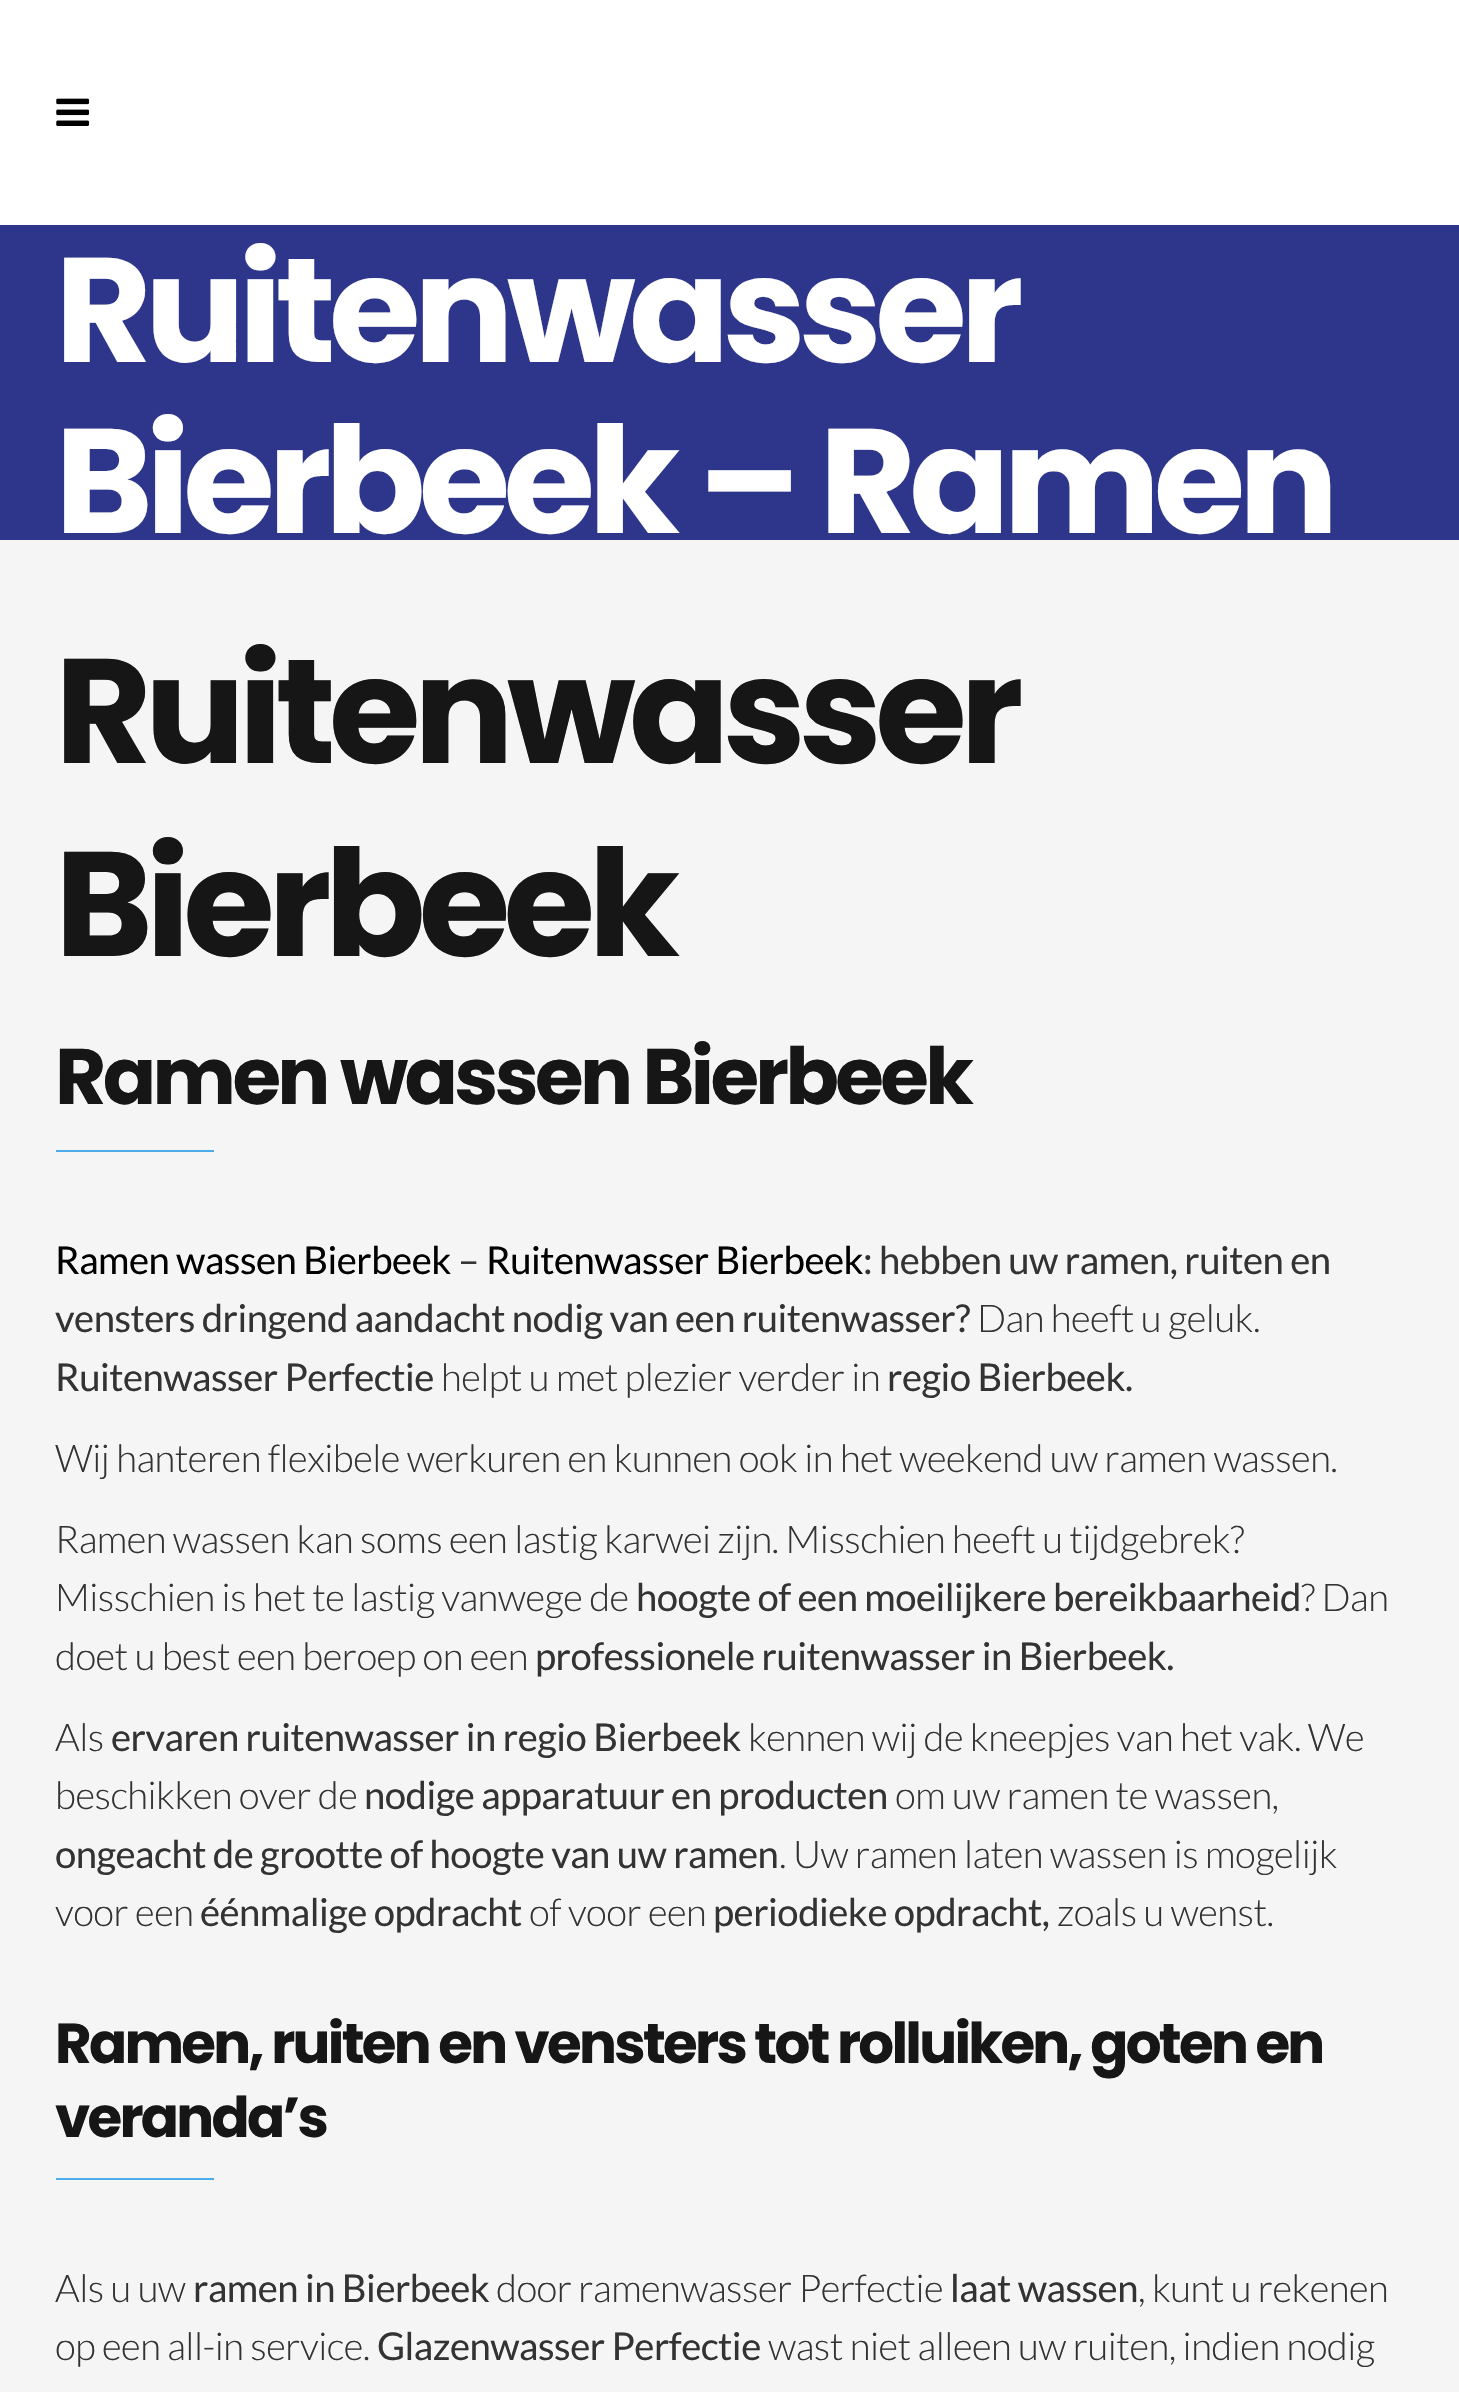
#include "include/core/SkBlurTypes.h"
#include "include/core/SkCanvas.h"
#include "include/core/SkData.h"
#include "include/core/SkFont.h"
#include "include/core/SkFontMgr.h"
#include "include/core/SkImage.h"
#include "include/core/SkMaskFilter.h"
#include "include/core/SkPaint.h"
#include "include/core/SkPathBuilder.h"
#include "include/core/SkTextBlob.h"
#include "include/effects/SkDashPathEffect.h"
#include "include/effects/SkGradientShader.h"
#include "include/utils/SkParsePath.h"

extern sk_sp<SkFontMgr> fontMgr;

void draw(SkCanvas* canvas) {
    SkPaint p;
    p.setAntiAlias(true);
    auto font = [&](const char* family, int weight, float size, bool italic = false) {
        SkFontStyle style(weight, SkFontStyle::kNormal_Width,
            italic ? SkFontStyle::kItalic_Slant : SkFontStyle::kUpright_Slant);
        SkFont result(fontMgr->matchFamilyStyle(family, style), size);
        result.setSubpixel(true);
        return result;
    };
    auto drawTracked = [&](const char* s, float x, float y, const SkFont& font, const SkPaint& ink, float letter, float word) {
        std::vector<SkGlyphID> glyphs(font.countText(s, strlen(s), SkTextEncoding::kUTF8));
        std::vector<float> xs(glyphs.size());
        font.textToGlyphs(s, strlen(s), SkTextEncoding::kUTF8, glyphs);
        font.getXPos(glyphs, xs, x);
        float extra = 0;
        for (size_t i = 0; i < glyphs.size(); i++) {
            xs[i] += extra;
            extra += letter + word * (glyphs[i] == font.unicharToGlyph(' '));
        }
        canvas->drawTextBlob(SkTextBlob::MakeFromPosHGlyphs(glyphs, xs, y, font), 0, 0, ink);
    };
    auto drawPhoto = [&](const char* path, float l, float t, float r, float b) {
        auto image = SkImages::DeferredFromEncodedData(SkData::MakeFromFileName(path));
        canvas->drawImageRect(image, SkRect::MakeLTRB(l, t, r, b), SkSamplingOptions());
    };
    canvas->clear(0xFFF5F5F5);
    p.setColor(0xFFFFFFFF);
    canvas->drawRect(SkRect::MakeLTRB(0, 0, 1459, 225), p);
    drawPhoto("media/1.png", 56, 98, 90, 126);
    p.setColor(0xFF2D368A);
    canvas->drawRect(SkRect::MakeLTRB(0, 225, 1459, 540), p);
    auto font1 = font("Poppins", 700, 148.5f);
    p.setColor(0xFFFFFFFF);
    drawTracked("Ruitenwasser", 55, 362, font1, p, -6.75f, 0);
    drawTracked("Bierbeek – Ramen", 55, 533, font1, p, -6.75f, 0);
    p.setColor(0xFF161616);
    drawTracked("Ruitenwasser", 55, 763, font1, p, -6.75f, 0);
    drawTracked("Bierbeek", 55, 956, font1, p, -6.75f, 0);
    auto font2 = font("Poppins", 700, 78.75f);
    drawTracked("Ramen wassen Bierbeek", 55, 1104, font2, p, -3.6f, 0);
    p.setColor(0xFF4BACE9);
    canvas->drawRect(SkRect::MakeLTRB(56, 1150, 214, 1152), p);
    auto font3 = font("Lato", 400, 38.25f);
    p.setColor(0xFF000000);
    drawTracked("Ramen wassen Bierbeek", 55, 1274, font3, p, -0.5f, 0);
    p.setColor(0xFF333333);
    drawTracked("–", 458, 1274, font3, p, -0.5f, 0);
    p.setColor(0xFF000000);
    drawTracked("Ruitenwasser Bierbeek", 486, 1274, font3, p, -0.5f, 0);
    p.setColor(0xFF333333);
    drawTracked(": hebben uw ramen, ruiten en", 863, 1274, font3, p, -0.5f, 0);
    drawTracked("vensters dringend aandacht nodig van een ruitenwasser?", 55, 1332, font3, p, -0.5f, 0);
    auto font4 = font("Lato", 300, 38.25f);
    drawTracked("Dan heeft u geluk.", 977, 1332, font4, p, -0.5f, 0);
    drawTracked("Ruitenwasser Perfectie", 55, 1391, font3, p, -0.5f, 0);
    drawTracked("helpt u met plezier verder in", 441, 1391, font4, p, -0.5f, 0);
    drawTracked("regio Bierbeek.", 887, 1391, font3, p, -0.5f, 0);
    {
        const struct { const char* s; float x, y; } items[] = {
            {"Wij hanteren flexibele werkuren en kunnen ook in het weekend uw ramen wassen.", 55, 1472},
            {"Ramen wassen kan soms een lastig karwei zijn. Misschien heeft u tijdgebrek?", 55, 1553},
            {"Misschien is het te lastig vanwege de", 55, 1611},
        };
        for (auto [s, x, y] : items) {
            drawTracked(s, x, y, font4, p, -0.5f, 0);
        }
    }
    drawTracked("hoogte of een moeilijkere bereikbaarheid", 636, 1611, font3, p, -0.5f, 0);
    drawTracked("? Dan", 1301, 1611, font4, p, -0.5f, 0);
    drawTracked("doet u best een beroep on een", 55, 1670, font4, p, -0.5f, 0);
    drawTracked("professionele ruitenwasser in Bierbeek.", 535, 1670, font3, p, -0.5f, 0);
    drawTracked("Als", 55, 1751, font4, p, -0.5f, 0);
    drawTracked("ervaren ruitenwasser in regio Bierbeek", 111, 1751, font3, p, -0.5f, 0);
    drawTracked("kennen wij de kneepjes van het vak. We", 748, 1751, font4, p, -0.5f, 0);
    drawTracked("beschikken over de", 55, 1809, font4, p, -0.5f, 0);
    drawTracked("nodige apparatuur en producten", 364, 1809, font3, p, -0.5f, 0);
    drawTracked("om uw ramen te wassen,", 895, 1809, font4, p, -0.5f, 0);
    drawTracked("ongeacht de grootte of hoogte van uw ramen", 55, 1868, font3, p, -0.5f, 0);
    drawTracked(". Uw ramen laten wassen is mogelijk", 779, 1868, font4, p, -0.5f, 0);
    drawTracked("voor een", 55, 1926, font4, p, -0.5f, 0);
    drawTracked("éénmalige opdracht", 200, 1926, font3, p, -0.5f, 0);
    drawTracked("of voor een", 529, 1926, font4, p, -0.5f, 0);
    drawTracked("periodieke opdracht,", 713, 1926, font3, p, -0.5f, 0);
    drawTracked("zoals u wenst.", 1057, 1926, font4, p, -0.5f, 0);
    auto font5 = font("Poppins", 700, 56.25f);
    p.setColor(0xFF161616);
    drawTracked("Ramen, ruiten en vensters tot rolluiken, goten en", 55, 2063, font5, p, -2.7f, 0);
    drawTracked("veranda’s", 55, 2137, font5, p, -2.7f, 0);
    p.setColor(0xFF4BACE9);
    canvas->drawRect(SkRect::MakeLTRB(56, 2178, 214, 2180), p);
    p.setColor(0xFF333333);
    drawTracked("Als u uw", 55, 2302, font4, p, -0.5f, 0);
    drawTracked("ramen in Bierbeek", 193, 2302, font3, p, -0.5f, 0);
    drawTracked("door ramenwasser Perfectie", 496, 2302, font4, p, -0.5f, 0);
    drawTracked("laat wassen", 950, 2302, font3, p, -0.5f, 0);
    drawTracked(", kunt u rekenen", 1138, 2302, font4, p, -0.5f, 0);
    drawTracked("op een all-in service.", 55, 2360, font4, p, -0.5f, 0);
    drawTracked("Glazenwasser Perfectie", 377, 2360, font3, p, -0.5f, 0);
    drawTracked("wast niet alleen uw ruiten, indien nodig", 768, 2360, font4, p, -0.5f, 0);
}
